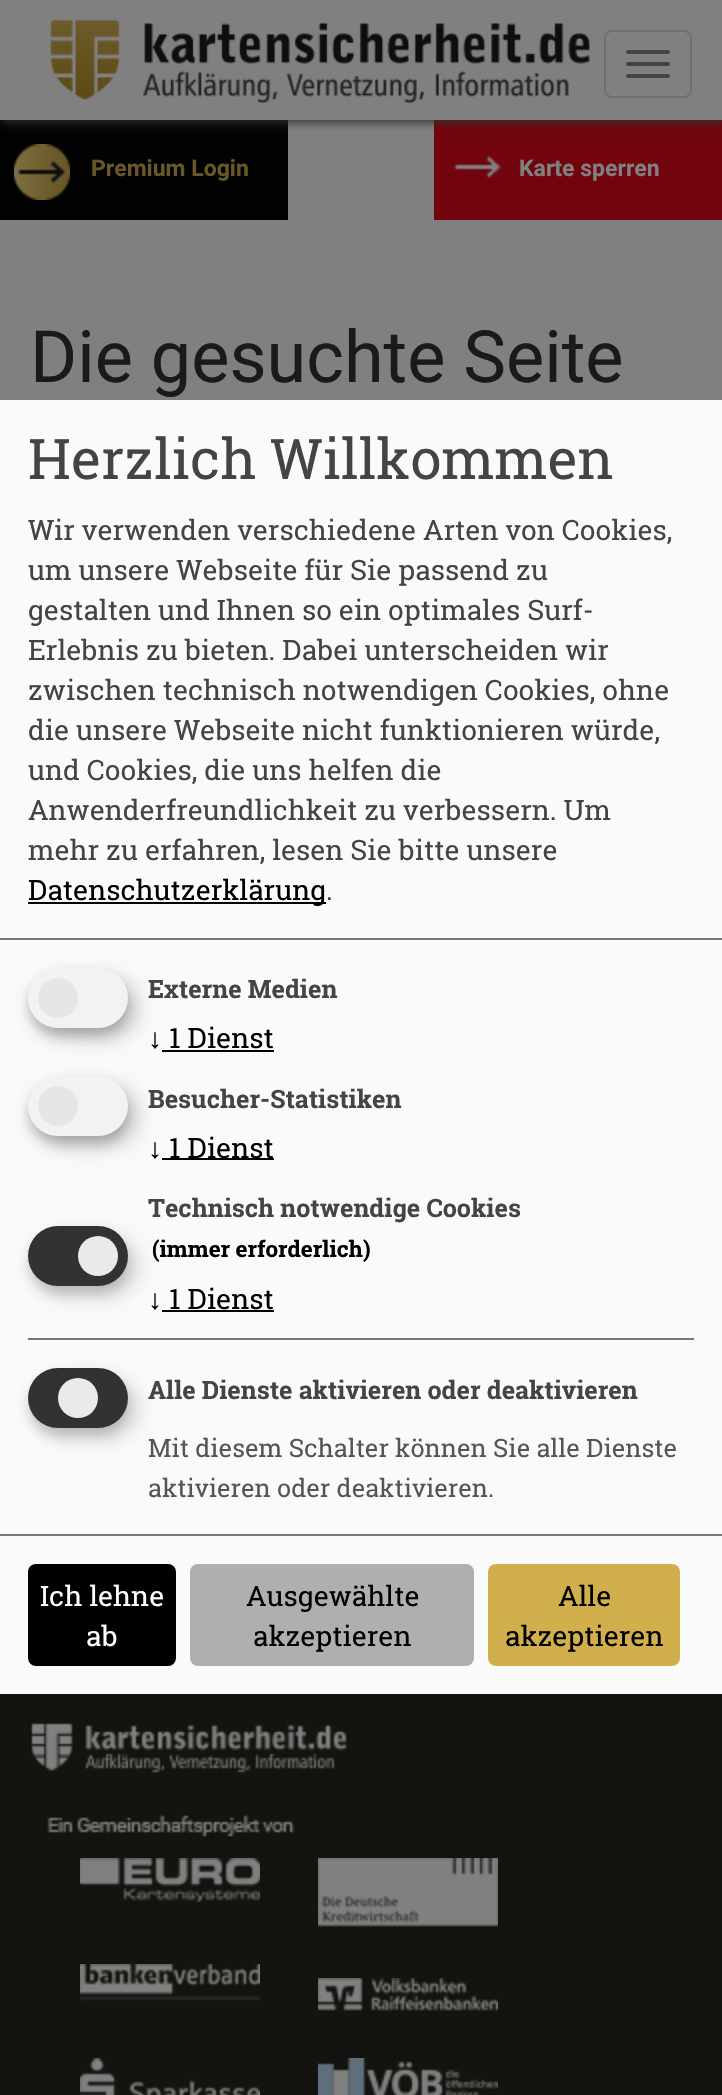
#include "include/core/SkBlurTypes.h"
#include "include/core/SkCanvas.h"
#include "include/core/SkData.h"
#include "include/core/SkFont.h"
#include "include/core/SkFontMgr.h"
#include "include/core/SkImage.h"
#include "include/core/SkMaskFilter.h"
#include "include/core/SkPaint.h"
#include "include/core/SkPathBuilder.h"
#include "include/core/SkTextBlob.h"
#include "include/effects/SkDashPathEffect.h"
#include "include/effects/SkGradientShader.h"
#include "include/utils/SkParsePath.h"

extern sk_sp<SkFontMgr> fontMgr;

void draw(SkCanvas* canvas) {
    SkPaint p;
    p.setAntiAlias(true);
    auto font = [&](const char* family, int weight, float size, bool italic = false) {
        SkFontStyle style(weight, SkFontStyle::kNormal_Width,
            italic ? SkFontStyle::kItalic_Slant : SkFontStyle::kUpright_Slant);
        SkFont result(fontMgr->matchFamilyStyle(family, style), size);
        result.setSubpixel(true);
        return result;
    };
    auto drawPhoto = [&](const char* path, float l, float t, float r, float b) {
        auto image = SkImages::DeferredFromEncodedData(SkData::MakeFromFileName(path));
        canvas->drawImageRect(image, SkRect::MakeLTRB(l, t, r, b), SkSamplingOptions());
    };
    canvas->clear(0xFF13130F);
    {
        const struct { float l, t, r, b; SkColor color; } items[] = {
            {0, 0, 722, 400, 0xFF808080},
            {0, 120, 288, 220, 0xFF020202},
            {434, 120, 722, 220, 0xFF71040C},
        };
        for (auto [l, t, r, b, color] : items) {
            p.setColor(color);
            canvas->drawRect(SkRect::MakeLTRB(l, t, r, b), p);
        }
    }
    canvas->save();
    canvas->clipRect(SkRect::MakeLTRB(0, 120, 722, 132));
    p.setColor(0xFF333333);
    p.setMaskFilter(SkMaskFilter::MakeBlur(kNormal_SkBlurStyle, 5));
    canvas->drawRect(SkRect::MakeLTRB(2, 2, 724, 122), p);
    p.setMaskFilter(nullptr);
    canvas->restore();
    drawPhoto("media/1.png", 50, 19, 590, 104);
    p.setStyle(SkPaint::kStroke_Style);
    p.setStrokeWidth(2);
    p.setColor(0xFF6F6F6F);
    canvas->drawRoundRect(SkRect::MakeLTRB(605, 31, 691, 97), 7, 7, p);
    p.setStyle(SkPaint::kFill_Style);
    p.setColor(0xFF444444);
    canvas->drawRoundRect(SkRect::MakeLTRB(626, 50, 670, 54), 2, 2, p);
    canvas->drawRoundRect(SkRect::MakeLTRB(626, 62, 670, 66), 2, 2, p);
    canvas->drawRoundRect(SkRect::MakeLTRB(626, 74, 670, 78), 2, 2, p);
    drawPhoto("media/2.png", 14, 144, 70, 200);
    auto font1 = font("Roboto", 700, 23);
    p.setColor(0xFF695827);
    canvas->drawString("Premium Login", 91, 176, font1, p);
    drawPhoto("media/3.png", 453, 155, 503, 179);
    p.setColor(0xFF808080);
    canvas->drawString("Karte sperren", 519, 176, font1, p);
    auto font2 = font("Roboto", 400, 72);
    p.setColor(0xFF1A1A1A);
    canvas->drawString("Die gesuchte Seite", 30, 382, font2, p);
    p.setColor(0xFFFAFAFA);
    canvas->drawRect(SkRect::MakeLTRB(0, 400, 722, 1694), p);
    p.setColor(0xFF777777);
    canvas->drawRect(SkRect::MakeLTRB(0, 938, 722, 940), p);
    auto font3 = font("Roboto Slab", 400, 56);
    p.setColor(0xFF444444);
    canvas->drawString("Herzlich Willkommen", 28, 479, font3, p);
    auto font4 = font("Roboto Slab", 400, 28);
    {
        const struct { const char* s; float x, y; } items[] = {
            {"Wir verwenden verschiedene Arten von Cookies,", 28, 540},
            {"um unsere Webseite für Sie passend zu", 28, 580},
            {"gestalten und Ihnen so ein optimales Surf-", 28, 620},
            {"Erlebnis zu bieten. Dabei unterscheiden wir", 28, 660},
            {"zwischen technisch notwendigen Cookies, ohne", 28, 700},
            {"die unsere Webseite nicht funktionieren würde,", 28, 740},
            {"und Cookies, die uns helfen die", 28, 780},
            {"Anwenderfreundlichkeit zu verbessern. Um", 28, 820},
            {"mehr zu erfahren, lesen Sie bitte unsere", 28, 860},
        };
        for (auto [s, x, y] : items) {
            canvas->drawString(s, x, y, font4, p);
        }
    }
    p.setColor(0xFF000000);
    canvas->drawRect(SkRect::MakeLTRB(28, 902, 326, 904), p);
    canvas->drawString("Datenschutzerklärung", 28, 900, font4, p);
    p.setColor(0xFF444444);
    canvas->drawString(".", 326, 900, font4, p);
    p.setColor(0xFF000000);
    canvas->drawRect(SkRect::MakeLTRB(162, 1050, 274, 1052), p);
    p.setColor(0x30000000);
    p.setMaskFilter(SkMaskFilter::MakeBlur(kNormal_SkBlurStyle, 10));
    canvas->drawRoundRect(SkRect::MakeLTRB(38, 978, 138, 1038), 30, 30, p);
    p.setMaskFilter(nullptr);
    p.setColor(0x33000000);
    p.setMaskFilter(SkMaskFilter::MakeBlur(kNormal_SkBlurStyle, 6));
    canvas->drawRoundRect(SkRect::MakeLTRB(28, 976, 128, 1036), 30, 30, p);
    p.setMaskFilter(nullptr);
    p.setColor(0xFFF2F2F2);
    canvas->drawRoundRect(SkRect::MakeLTRB(28, 968, 128, 1028), 30, 30, p);
    p.setColor(0xFFE6E6E6);
    canvas->drawCircle(58, 998, 20, p);
    auto font5 = font("Roboto Slab", 700, 25.2f);
    p.setColor(0xFF444444);
    canvas->drawString("Externe Medien", 148, 998, font5, p);
    auto font6 = font("Liberation Serif", 400, 28);
    p.setColor(0xFF000000);
    canvas->drawString("↓", 148, 1048, font6, p);
    canvas->drawString("1 Dienst", 169, 1048, font4, p);
    canvas->drawRect(SkRect::MakeLTRB(162, 1158, 274, 1160), p);
    p.setColor(0x30000000);
    p.setMaskFilter(SkMaskFilter::MakeBlur(kNormal_SkBlurStyle, 10));
    canvas->drawRoundRect(SkRect::MakeLTRB(38, 1086, 138, 1146), 30, 30, p);
    p.setMaskFilter(nullptr);
    p.setColor(0x33000000);
    p.setMaskFilter(SkMaskFilter::MakeBlur(kNormal_SkBlurStyle, 6));
    canvas->drawRoundRect(SkRect::MakeLTRB(28, 1084, 128, 1144), 30, 30, p);
    p.setMaskFilter(nullptr);
    p.setColor(0xFFF2F2F2);
    canvas->drawRoundRect(SkRect::MakeLTRB(28, 1076, 128, 1136), 30, 30, p);
    p.setColor(0xFFE6E6E6);
    canvas->drawCircle(58, 1106, 20, p);
    p.setColor(0xFF444444);
    canvas->drawString("Besucher-Statistiken", 148, 1108, font5, p);
    p.setColor(0xFF000000);
    canvas->drawString("↓", 148, 1158, font6, p);
    canvas->drawString("1 Dienst", 169, 1158, font4, p);
    canvas->drawRect(SkRect::MakeLTRB(162, 1310, 274, 1312), p);
    p.setColor(0x26000000);
    p.setMaskFilter(SkMaskFilter::MakeBlur(kNormal_SkBlurStyle, 10));
    canvas->drawRoundRect(SkRect::MakeLTRB(38, 1236, 138, 1296), 30, 30, p);
    p.setMaskFilter(nullptr);
    p.setColor(0x33323232);
    p.setMaskFilter(SkMaskFilter::MakeBlur(kNormal_SkBlurStyle, 6));
    canvas->drawRoundRect(SkRect::MakeLTRB(28, 1234, 128, 1294), 30, 30, p);
    p.setMaskFilter(nullptr);
    p.setColor(0xFF323232);
    canvas->drawRoundRect(SkRect::MakeLTRB(28, 1226, 128, 1286), 30, 30, p);
    p.setColor(0xFFEAEAEA);
    canvas->drawCircle(98, 1256, 20, p);
    p.setColor(0xFF444444);
    canvas->drawString("Technisch notwendige Cookies", 148, 1217, font5, p);
    auto font7 = font("Roboto Slab", 700, 22.5f);
    p.setColor(0xFF000000);
    canvas->drawString("(immer erforderlich)", 152, 1257, font7, p);
    canvas->drawString("↓", 148, 1309, font6, p);
    canvas->drawString("1 Dienst", 169, 1309, font4, p);
    p.setColor(0xFF777777);
    canvas->drawRect(SkRect::MakeLTRB(28, 1338, 694, 1340), p);
    p.setColor(0x26000000);
    p.setMaskFilter(SkMaskFilter::MakeBlur(kNormal_SkBlurStyle, 10));
    canvas->drawRoundRect(SkRect::MakeLTRB(38, 1378, 138, 1438), 30, 30, p);
    p.setMaskFilter(nullptr);
    p.setColor(0x33323232);
    p.setMaskFilter(SkMaskFilter::MakeBlur(kNormal_SkBlurStyle, 6));
    canvas->drawRoundRect(SkRect::MakeLTRB(28, 1376, 128, 1436), 30, 30, p);
    p.setMaskFilter(nullptr);
    p.setColor(0xFF323232);
    canvas->drawRoundRect(SkRect::MakeLTRB(28, 1368, 128, 1428), 30, 30, p);
    p.setColor(0xFFEAEAEA);
    canvas->drawCircle(78, 1398, 20, p);
    p.setColor(0xFF444444);
    canvas->drawString("Alle Dienste aktivieren oder deaktivieren", 148, 1399, font5, p);
    auto font8 = font("Roboto Slab", 400, 25.2f);
    p.setColor(0xFF555555);
    canvas->drawString("Mit diesem Schalter können Sie alle Dienste", 148, 1457, font8, p);
    canvas->drawString("aktivieren oder deaktivieren.", 148, 1497, font8, p);
    p.setColor(0xFF777777);
    canvas->drawRect(SkRect::MakeLTRB(0, 1534, 722, 1536), p);
    p.setColor(0xFF000000);
    canvas->drawRoundRect(SkRect::MakeLTRB(28, 1564, 176, 1666), 8, 8, p);
    p.setColor(0xFFFFFFFF);
    canvas->drawString("Ich lehne", 40, 1606, font4, p);
    canvas->drawString("ab", 86, 1646, font4, p);
    p.setColor(0xFFAFAFAF);
    canvas->drawRoundRect(SkRect::MakeLTRB(190, 1564, 474, 1666), 8, 8, p);
    p.setColor(0xFF000000);
    canvas->drawString("Ausgewählte", 246, 1606, font4, p);
    canvas->drawString("akzeptieren", 253, 1646, font4, p);
    p.setColor(0xFFD1AF4D);
    canvas->drawRoundRect(SkRect::MakeLTRB(488, 1564, 680, 1666), 8, 8, p);
    p.setColor(0xFF000000);
    canvas->drawString("Alle", 558, 1606, font4, p);
    canvas->drawString("akzeptieren", 505, 1646, font4, p);
    drawPhoto("media/4.png", 31, 1723, 347, 1773);
    drawPhoto("media/5.png", 47, 1815, 295, 1837);
    drawPhoto("media/6.png", 80, 1858, 260, 1903);
    drawPhoto("media/7.png", 318, 1858, 498, 1927);
    drawPhoto("media/8.png", 80, 1964, 260, 2001);
    drawPhoto("media/9.png", 318, 1978, 498, 2011);
    drawPhoto("media/10.png", 80, 2058, 260, 2095);
    drawPhoto("media/11.png", 318, 2058, 498, 2095);
}
